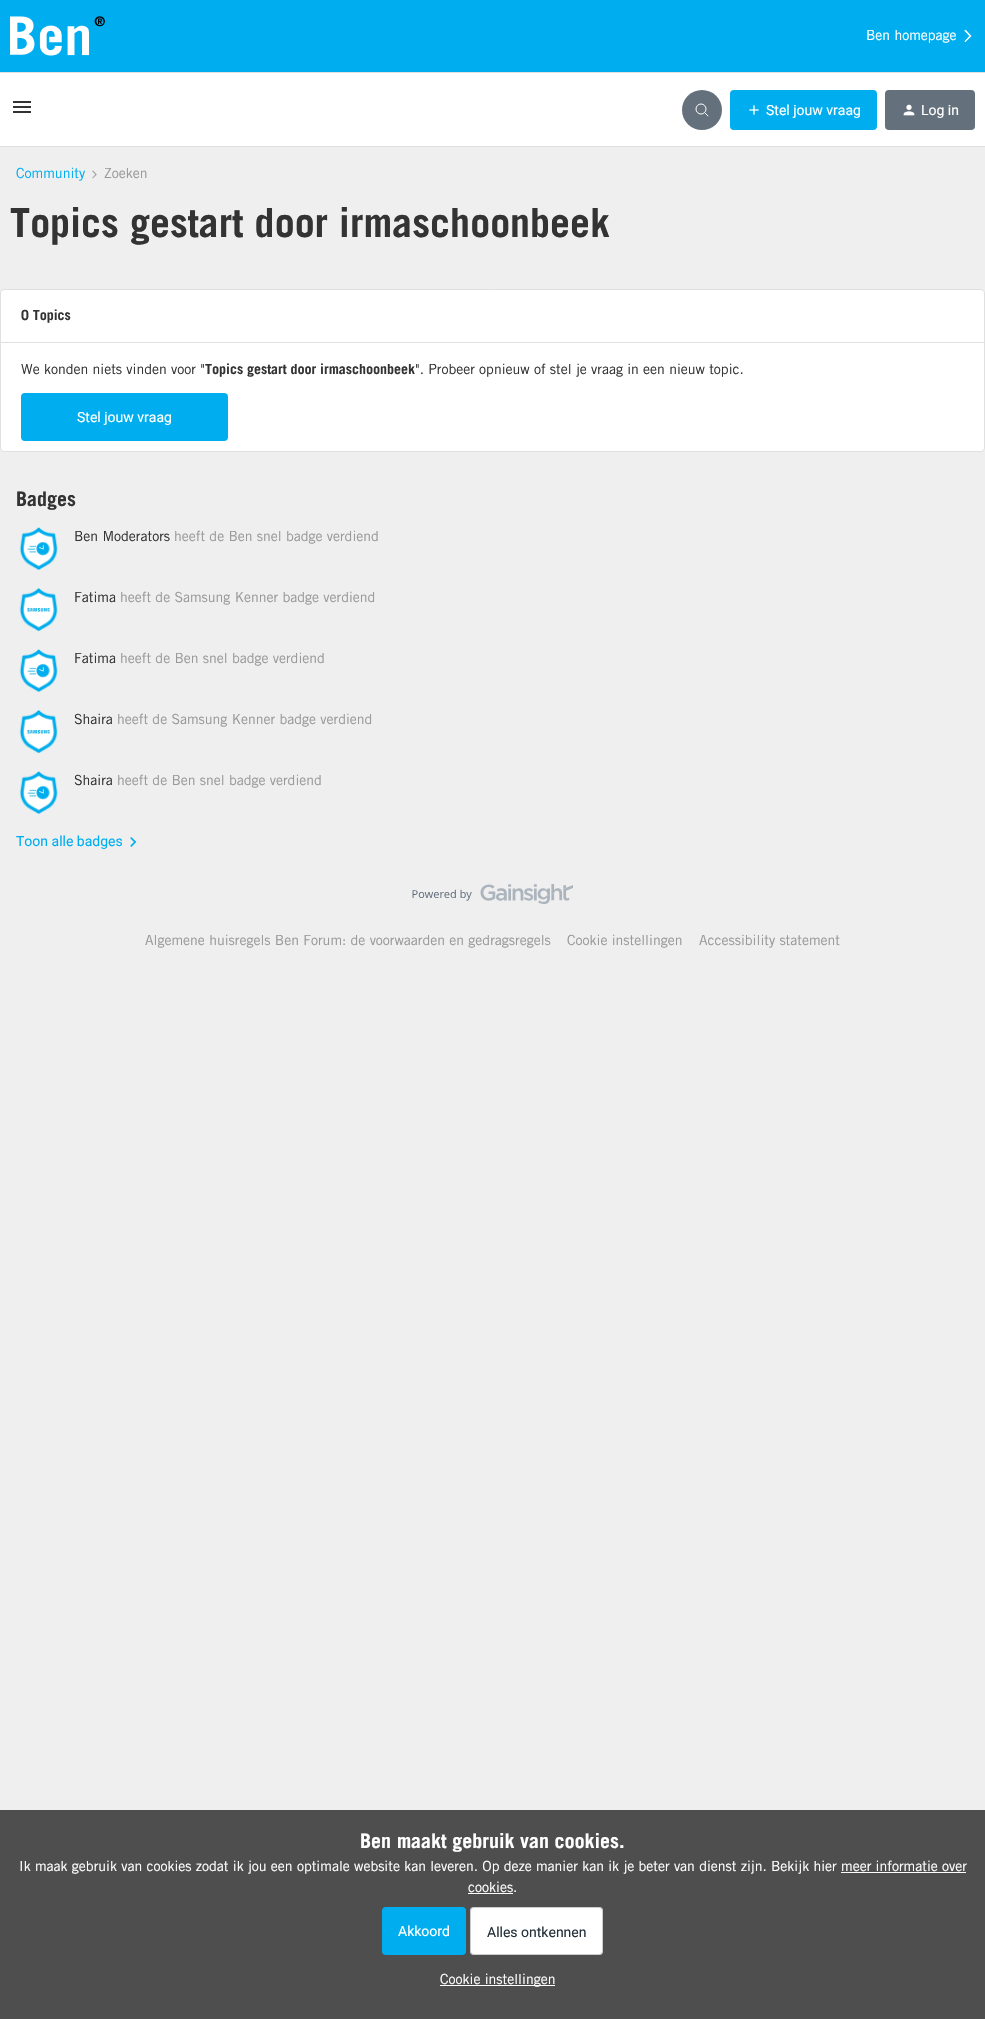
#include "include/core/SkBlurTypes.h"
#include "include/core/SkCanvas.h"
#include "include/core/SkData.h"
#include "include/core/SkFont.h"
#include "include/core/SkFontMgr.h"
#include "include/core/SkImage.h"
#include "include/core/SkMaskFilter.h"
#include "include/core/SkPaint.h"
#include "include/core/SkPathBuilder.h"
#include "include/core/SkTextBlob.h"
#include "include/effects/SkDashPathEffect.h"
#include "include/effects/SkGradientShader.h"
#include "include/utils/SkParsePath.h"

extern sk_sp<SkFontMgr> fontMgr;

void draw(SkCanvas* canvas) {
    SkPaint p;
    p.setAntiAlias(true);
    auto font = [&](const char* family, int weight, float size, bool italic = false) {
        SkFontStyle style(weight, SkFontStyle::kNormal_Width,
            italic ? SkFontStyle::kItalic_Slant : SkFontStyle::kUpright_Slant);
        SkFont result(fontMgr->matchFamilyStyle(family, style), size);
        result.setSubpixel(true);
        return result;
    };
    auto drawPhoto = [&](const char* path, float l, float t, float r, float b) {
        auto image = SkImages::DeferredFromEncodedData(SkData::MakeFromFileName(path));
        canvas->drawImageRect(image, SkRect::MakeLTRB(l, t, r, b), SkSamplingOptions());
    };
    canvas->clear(0xFFEFEFEF);
    p.setColor(0xFF00AEEF);
    canvas->drawRect(SkRect::MakeLTRB(0, 0, 985, 72), p);
    drawPhoto("media/1.png", 10, 16, 105, 56);
    auto font1 = font("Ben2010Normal", 400, 14);
    p.setColor(0xFFFFFFFF);
    canvas->drawString("Ben homepage", 866, 40, font1, p);
    drawPhoto("media/2.png", 964, 29, 972, 43);
    {
        const struct { float l, t, r, b; SkColor color; } items[] = {
            {0, 73, 985, 146, 0xFFFFFFFF},
            {0, 72, 985, 73, 0xFFE0E0E0},
            {0, 146, 985, 147, 0xFFE0E0E0},
        };
        for (auto [l, t, r, b, color] : items) {
            p.setColor(color);
            canvas->drawRect(SkRect::MakeLTRB(l, t, r, b), p);
        }
    }
    drawPhoto("media/3.png", 13, 101, 31, 113);
    p.setColor(0xFF64707B);
    canvas->drawCircle(702, 110, 20, p);
    p.setStyle(SkPaint::kStroke_Style);
    p.setStrokeWidth(1);
    p.setColor(0xFFFFFFFF);
    canvas->drawCircle(701, 109, 5, p);
    p.setStrokeCap(SkPaint::kRound_Cap);
    canvas->drawPath(SkPathBuilder().moveTo(705, 113).lineTo(708, 116).detach(), p);
    p.setStyle(SkPaint::kFill_Style);
    p.setColor(0xFF00AEEF);
    canvas->drawRoundRect(SkRect::MakeLTRB(730, 90, 877, 130), 4, 4, p);
    drawPhoto("media/4.png", 749, 105, 759, 115);
    auto font2 = font("Roboto", 400, 14);
    p.setColor(0xFFFFFFFF);
    canvas->drawString("Stel jouw vraag", 766, 115, font2, p);
    p.setColor(0xFF64707B);
    canvas->drawRoundRect(SkRect::MakeLTRB(885, 90, 975, 130), 4, 4, p);
    drawPhoto("media/5.png", 903, 104, 915, 116);
    p.setColor(0xFFFFFFFF);
    canvas->drawString("Log in", 921, 115, font2, p);
    p.setColor(0xFF00AEEF);
    canvas->drawString("Community", 16, 178, font1, p);
    drawPhoto("media/6.png", 92, 170, 97, 179);
    p.setColor(0xFF999999);
    canvas->drawString("Zoeken", 104, 178, font1, p);
    auto font3 = font("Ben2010", 700, 40);
    p.setColor(0xFF333333);
    canvas->drawString("Topics gestart door irmaschoonbeek", 10, 237, font3, p);
    p.setColor(0xFFFFFFFF);
    canvas->drawRoundRect(SkRect::MakeLTRB(0.5f, 289.5f, 984.5f, 451.5f), 3.5f, 3.5f, p);
    p.setStyle(SkPaint::kStroke_Style);
    p.setStrokeCap(SkPaint::kButt_Cap);
    p.setColor(0xFFE0E0E0);
    canvas->drawRoundRect(SkRect::MakeLTRB(0.5f, 289.5f, 984.5f, 451.5f), 3.5f, 3.5f, p);
    p.setStyle(SkPaint::kFill_Style);
    canvas->drawRect(SkRect::MakeLTRB(1, 342, 984, 343), p);
    auto font4 = font("Ben2010", 700, 14);
    p.setColor(0xFF333333);
    canvas->drawString("0 Topics", 21, 320, font4, p);
    canvas->drawString("We konden niets vinden voor \"", 21, 374, font1, p);
    canvas->drawString("Topics gestart door irmaschoonbeek", 205, 374, font4, p);
    canvas->drawString("\". Probeer opnieuw of stel je vraag in een nieuw topic.", 415, 374, font1, p);
    p.setColor(0xFF00AEEF);
    canvas->drawRoundRect(SkRect::MakeLTRB(21, 393, 228, 441), 4, 4, p);
    p.setColor(0xFFFFFFFF);
    canvas->drawString("Stel jouw vraag", 77, 422, font2, p);
    auto font5 = font("Ben2010", 700, 20);
    p.setColor(0xFF333333);
    canvas->drawString("Badges", 16, 506, font5, p);
    drawPhoto("media/7.png", 19, 527, 58, 571);
    canvas->drawString("Ben Moderators", 74, 541, font1, p);
    p.setColor(0xFF999999);
    canvas->drawString("heeft de Ben snel badge verdiend", 174, 541, font1, p);
    drawPhoto("media/8.png", 19, 588, 58, 632);
    p.setColor(0xFF333333);
    canvas->drawString("Fatima", 74, 602, font1, p);
    p.setColor(0xFF999999);
    canvas->drawString("heeft de Samsung Kenner badge verdiend", 120, 602, font1, p);
    drawPhoto("media/7.png", 19, 649, 58, 693);
    p.setColor(0xFF333333);
    canvas->drawString("Fatima", 74, 663, font1, p);
    p.setColor(0xFF999999);
    canvas->drawString("heeft de Ben snel badge verdiend", 120, 663, font1, p);
    drawPhoto("media/8.png", 19, 710, 58, 754);
    p.setColor(0xFF333333);
    canvas->drawString("Shaira", 74, 724, font1, p);
    p.setColor(0xFF999999);
    canvas->drawString("heeft de Samsung Kenner badge verdiend", 117, 724, font1, p);
    drawPhoto("media/7.png", 19, 771, 58, 815);
    p.setColor(0xFF333333);
    canvas->drawString("Shaira", 74, 785, font1, p);
    p.setColor(0xFF999999);
    canvas->drawString("heeft de Ben snel badge verdiend", 117, 785, font1, p);
    p.setColor(0xFF00AEEF);
    canvas->drawString("Toon alle badges", 16, 846, font2, p);
    drawPhoto("media/9.png", 130, 837, 137, 847);
    drawPhoto("media/10.png", 412, 884, 573, 904);
    p.setColor(0xFF999999);
    {
        const struct { const char* s; float x, y; } items[] = {
            {"Algemene huisregels Ben Forum: de voorwaarden en gedragsregels", 145, 945},
            {"Cookie instellingen", 567, 945},
            {"Accessibility statement", 699, 945},
        };
        for (auto [s, x, y] : items) {
            canvas->drawString(s, x, y, font1, p);
        }
    }
    p.setColor(0xFF4E4E4E);
    canvas->drawRect(SkRect::MakeLTRB(0, 1810, 985, 2019), p);
    p.setColor(0xFFFFFFFF);
    canvas->drawString("Ben maakt gebruik van cookies.", 360, 1848, font5, p);
    canvas->drawString("Ik maak gebruik van cookies zodat ik jou een optimale website kan leveren. Op deze manier kan ik je beter van dienst zijn. Bekijk hier meer informatie over", 19, 1871, font1, p);
    canvas->drawRect(SkRect::MakeLTRB(841, 1872, 966, 1873), p);
    canvas->drawString("cookies.", 468, 1892, font1, p);
    canvas->drawRect(SkRect::MakeLTRB(468, 1893, 513, 1894), p);
    p.setColor(0xFF00AEEF);
    canvas->drawRoundRect(SkRect::MakeLTRB(382, 1907, 466, 1955), 4, 4, p);
    p.setColor(0xFFFFFFFF);
    canvas->drawString("Akkoord", 398, 1936, font2, p);
    canvas->drawRoundRect(SkRect::MakeLTRB(470, 1907, 603, 1955), 4, 4, p);
    p.setStyle(SkPaint::kStroke_Style);
    p.setColor(0x33000000);
    canvas->drawRoundRect(SkRect::MakeLTRB(470.5f, 1907.5f, 602.5f, 1954.5f), 3.5f, 3.5f, p);
    p.setStyle(SkPaint::kFill_Style);
    p.setColor(0xFF25313B);
    canvas->drawString("Alles ontkennen", 487, 1937, font2, p);
    p.setColor(0xFFFFFFFF);
    canvas->drawRect(SkRect::MakeLTRB(440, 1985, 555, 1986), p);
    canvas->drawString("Cookie instellingen", 440, 1984, font1, p);
}
